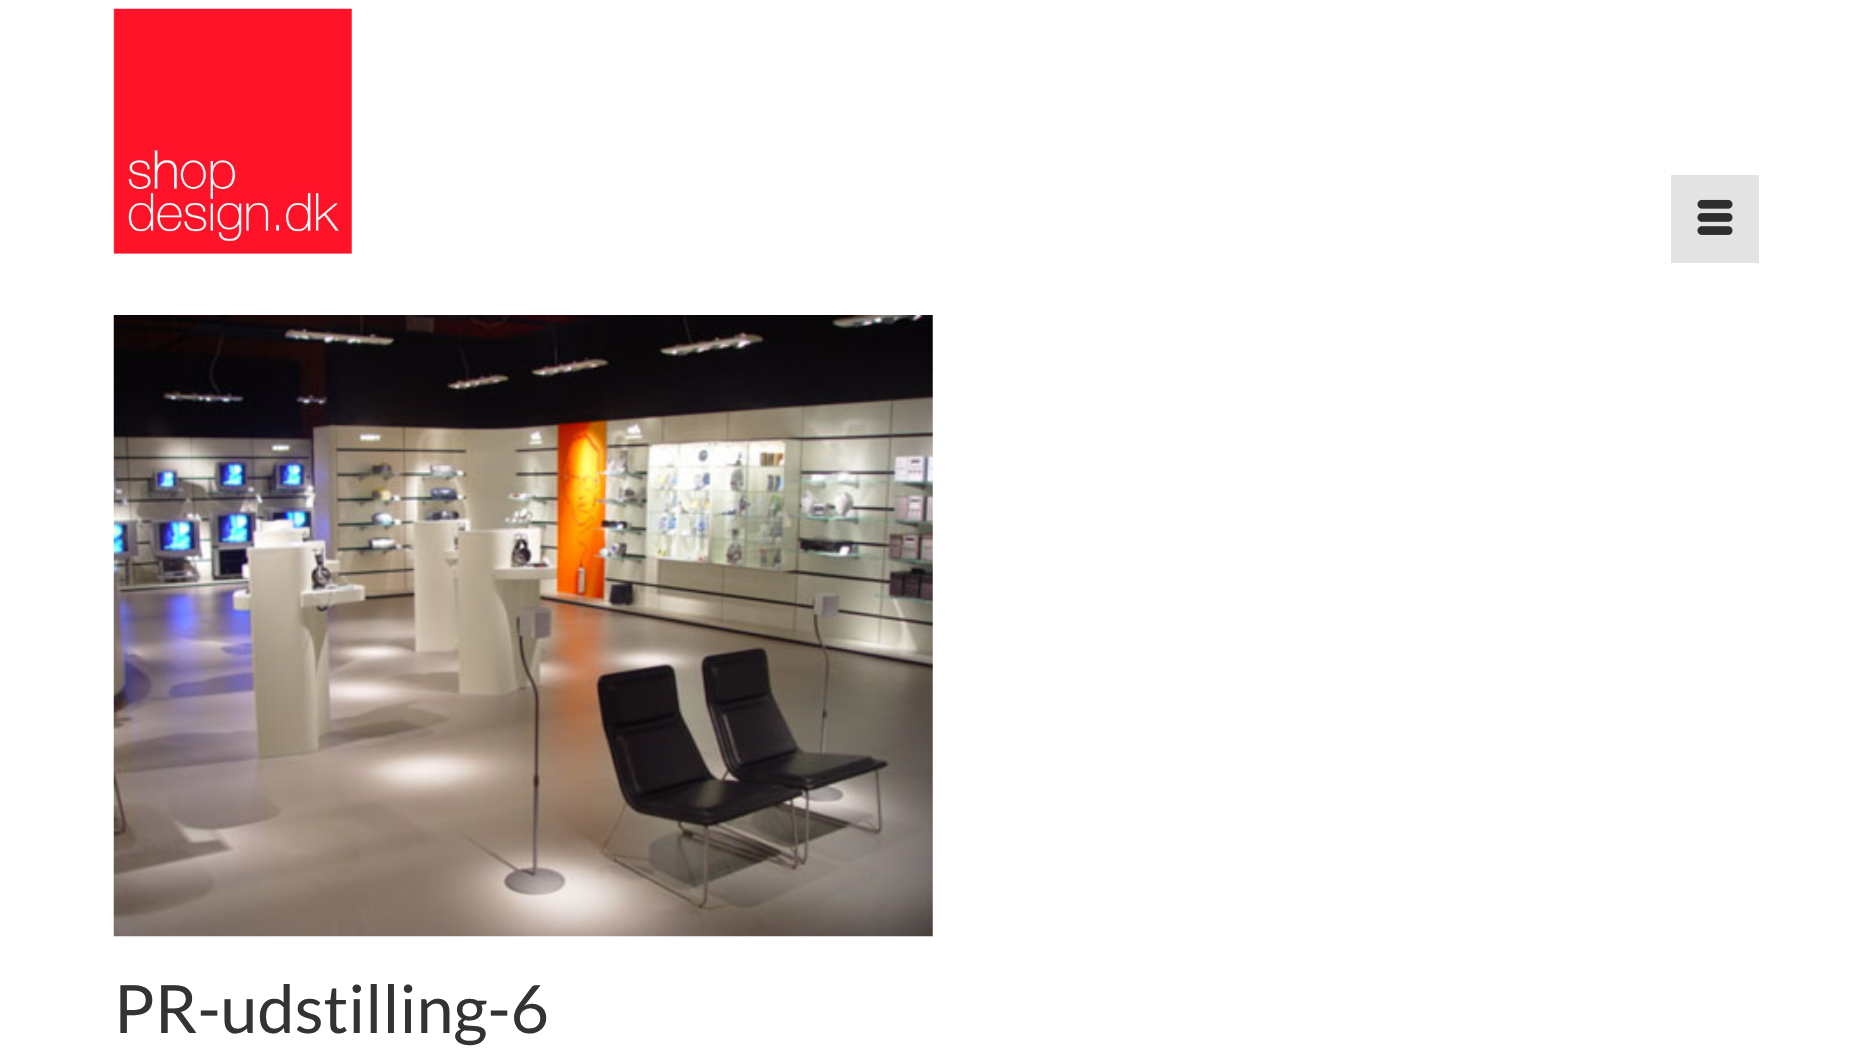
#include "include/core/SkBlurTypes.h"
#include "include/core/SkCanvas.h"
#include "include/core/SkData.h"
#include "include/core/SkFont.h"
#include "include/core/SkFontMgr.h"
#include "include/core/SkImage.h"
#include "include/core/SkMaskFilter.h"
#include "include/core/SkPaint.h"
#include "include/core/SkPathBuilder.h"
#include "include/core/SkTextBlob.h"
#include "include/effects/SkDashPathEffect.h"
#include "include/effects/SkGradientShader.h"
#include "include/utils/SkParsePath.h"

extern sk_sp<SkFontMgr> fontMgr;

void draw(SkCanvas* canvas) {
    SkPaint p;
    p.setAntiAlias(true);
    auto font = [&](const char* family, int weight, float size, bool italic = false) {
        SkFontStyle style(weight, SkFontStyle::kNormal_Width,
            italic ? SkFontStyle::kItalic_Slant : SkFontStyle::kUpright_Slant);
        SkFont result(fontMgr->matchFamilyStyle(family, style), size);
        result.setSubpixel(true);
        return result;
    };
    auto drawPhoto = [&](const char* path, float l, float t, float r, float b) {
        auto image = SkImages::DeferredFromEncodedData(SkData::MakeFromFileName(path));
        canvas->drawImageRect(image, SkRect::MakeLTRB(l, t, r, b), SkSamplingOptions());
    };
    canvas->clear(0xFFFFFFFF);
    drawPhoto("media/1.png", 113, 8, 352, 254);
    p.setColor(0xFFE3E3E3);
    canvas->drawRect(SkRect::MakeLTRB(1671, 175, 1759, 263), p);
    drawPhoto("media/2.png", 1697, 199, 1733, 235);
    drawPhoto("media/3.png", 113, 315, 933, 937);
    auto font1 = font("Lato", 400, 66.5f);
    p.setColor(0xFF333333);
    canvas->drawString("PR-udstilling-6", 114, 1033, font1, p);
}
